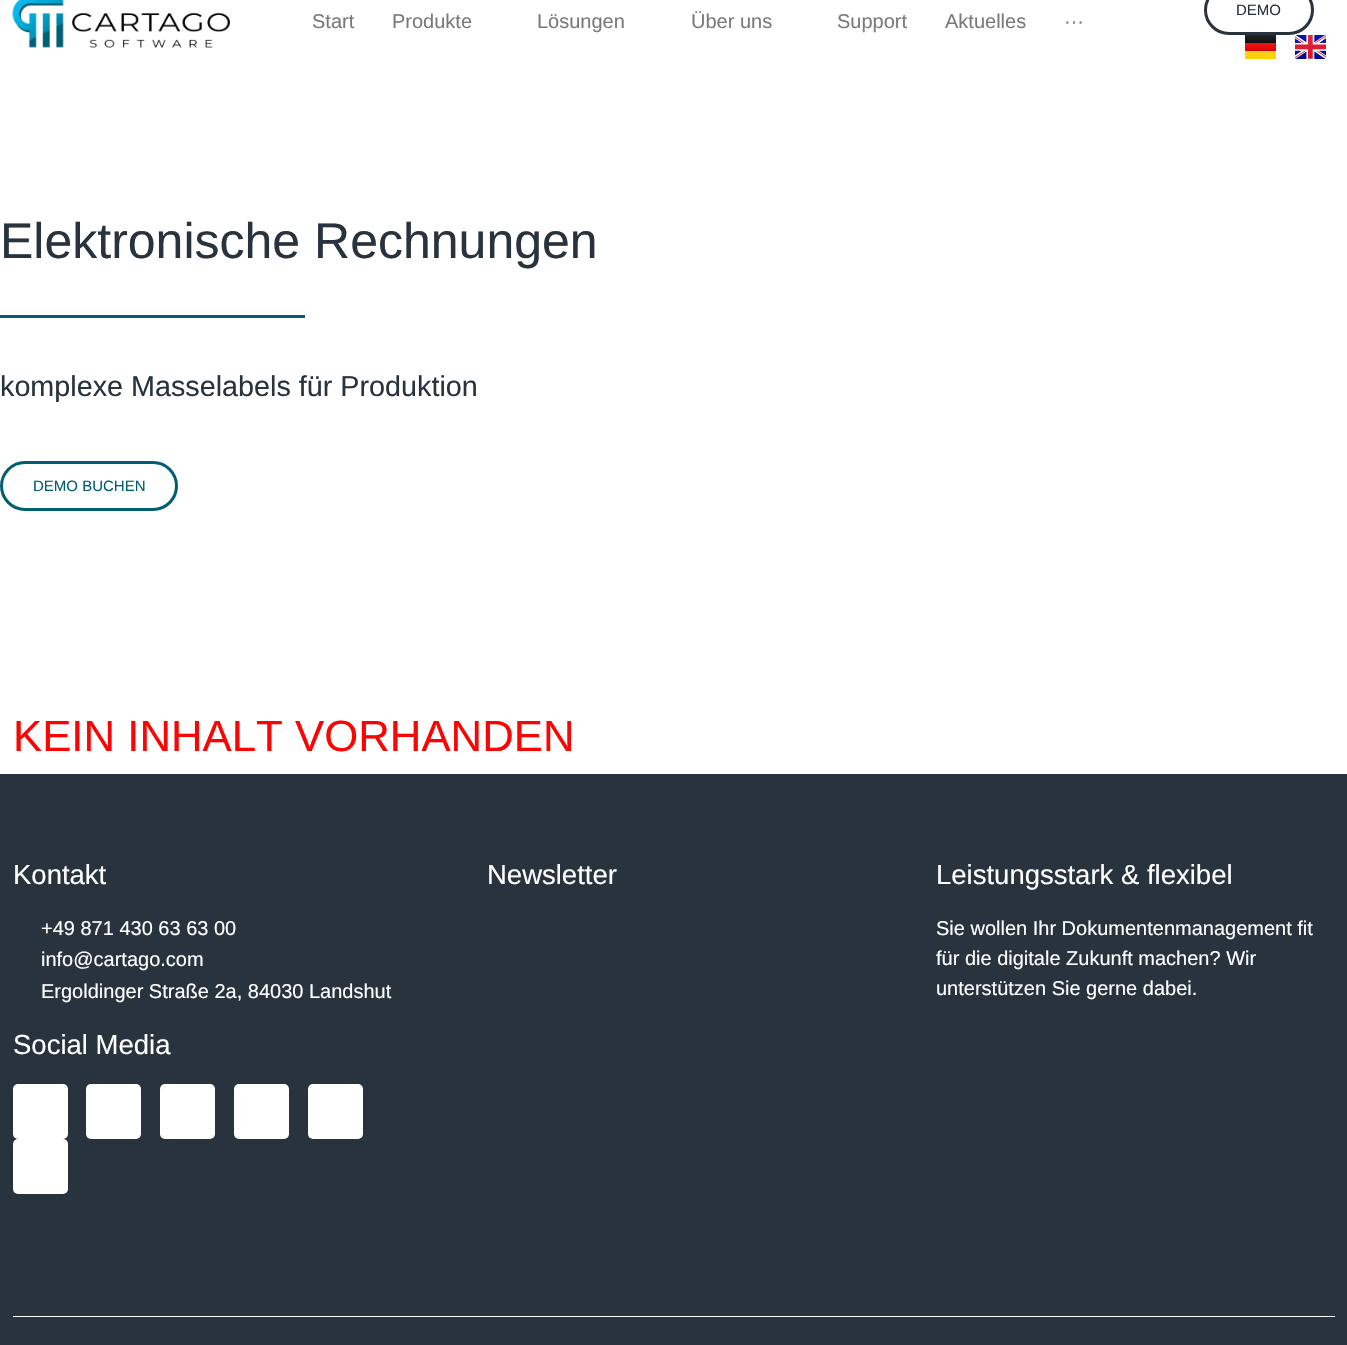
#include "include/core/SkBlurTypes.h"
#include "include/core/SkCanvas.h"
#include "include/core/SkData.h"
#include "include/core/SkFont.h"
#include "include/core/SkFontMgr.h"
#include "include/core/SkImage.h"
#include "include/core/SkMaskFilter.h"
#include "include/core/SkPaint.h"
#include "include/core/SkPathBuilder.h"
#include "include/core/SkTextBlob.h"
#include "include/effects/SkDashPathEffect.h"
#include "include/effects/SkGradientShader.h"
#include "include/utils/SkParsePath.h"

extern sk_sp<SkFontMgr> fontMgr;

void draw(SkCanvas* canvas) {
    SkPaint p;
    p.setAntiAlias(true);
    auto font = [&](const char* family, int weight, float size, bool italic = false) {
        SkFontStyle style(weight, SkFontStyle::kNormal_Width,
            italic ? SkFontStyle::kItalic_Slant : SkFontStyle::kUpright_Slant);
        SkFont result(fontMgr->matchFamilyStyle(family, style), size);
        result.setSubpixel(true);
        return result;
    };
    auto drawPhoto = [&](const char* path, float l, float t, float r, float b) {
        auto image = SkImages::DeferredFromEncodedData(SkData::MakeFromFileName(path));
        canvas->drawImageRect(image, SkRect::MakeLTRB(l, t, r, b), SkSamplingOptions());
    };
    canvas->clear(0xFFFFFFFF);
    drawPhoto("media/1.png", 12, 0, 230, 48);
    auto font1 = font("Liberation Sans", 400, 20);
    p.setColor(0xFF7A7A7A);
    {
        const struct { const char* s; float x, y; } items[] = {
            {"Start", 312, 28},
            {"Produkte", 392, 28},
            {"Lösungen", 537, 28},
            {"Über uns", 691, 28},
            {"Support", 837, 28},
            {"Aktuelles", 945, 28},
            {"···", 1064, 28},
        };
        for (auto [s, x, y] : items) {
            canvas->drawString(s, x, y, font1, p);
        }
    }
    p.setStyle(SkPaint::kStroke_Style);
    p.setStrokeWidth(3);
    p.setColor(0xFF28333D);
    canvas->drawRoundRect(SkRect::MakeLTRB(1205.5f, -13.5f, 1312.5f, 33.5f), 23.5f, 23.5f, p);
    auto font2 = font("Liberation Sans", 400, 15);
    p.setStyle(SkPaint::kFill_Style);
    canvas->drawString("DEMO", 1236, 15, font2, p);
    {
        const SkColor colors[] = {0xFF262626, 0xFF0D0D0D};
        const float stops[] = {0, 1};
        const SkPoint ends[] = {{1260, 35}, {1260, 43}};
        p.setShader(SkGradientShader::MakeLinear(ends, colors, stops, 2, SkTileMode::kClamp));
        p.setAlpha(255);
    }
    canvas->drawRect(SkRect::MakeLTRB(1245, 35, 1276, 43), p);
    {
        const SkColor colors[] = {0xFFF01515, 0xFFDE0000};
        const float stops[] = {0, 1};
        const SkPoint ends[] = {{1260, 43}, {1260, 51}};
        p.setShader(SkGradientShader::MakeLinear(ends, colors, stops, 2, SkTileMode::kClamp));
        p.setAlpha(255);
    }
    canvas->drawRect(SkRect::MakeLTRB(1245, 43, 1276, 51), p);
    {
        const SkColor colors[] = {0xFFFFD521, 0xFFFFCF00};
        const float stops[] = {0, 1};
        const SkPoint ends[] = {{1260, 51}, {1260, 59}};
        p.setShader(SkGradientShader::MakeLinear(ends, colors, stops, 2, SkTileMode::kClamp));
        p.setAlpha(255);
    }
    canvas->drawRect(SkRect::MakeLTRB(1245, 51, 1276, 59), p);
    drawPhoto("media/2.png", 1295, 35, 1326, 59);
    auto font3 = font("Liberation Sans", 400, 50);
    p.setShader(nullptr);
    p.setColor(0xFF28333D);
    canvas->drawString("Elektronische Rechnungen", 0, 258, font3, p);
    p.setColor(0xFF005E73);
    canvas->drawRect(SkRect::MakeLTRB(0, 315, 305, 318), p);
    auto font4 = font("Liberation Sans", 400, 28.75f);
    p.setColor(0xFF28333D);
    canvas->drawString("komplexe Masselabels für Produktion", 0, 396, font4, p);
    p.setStyle(SkPaint::kStroke_Style);
    p.setColor(0xFF005E73);
    canvas->drawRoundRect(SkRect::MakeLTRB(1.5f, 462.5f, 176.5f, 509.5f), 23.5f, 23.5f, p);
    p.setStyle(SkPaint::kFill_Style);
    canvas->drawString("DEMO BUCHEN", 33, 491, font2, p);
    auto font5 = font("Liberation Sans", 400, 43.75f);
    p.setColor(0xFFFD0303);
    canvas->drawString("KEIN INHALT VORHANDEN", 13, 751, font5, p);
    p.setColor(0xFF28333D);
    canvas->drawRect(SkRect::MakeLTRB(0, 774, 1347, 1345), p);
    auto font6 = font("Liberation Sans", 400, 27.5f);
    p.setColor(0xFFFFFFFF);
    canvas->drawString("Kontakt", 13, 884, font6, p);
    {
        const struct { const char* s; float x, y; } items[] = {
            {"+49 871 430 63 63 00", 41, 935},
            {"info@cartago.com", 41, 966},
            {"Ergoldinger Straße 2a, 84030 Landshut", 41, 998},
        };
        for (auto [s, x, y] : items) {
            canvas->drawString(s, x, y, font1, p);
        }
    }
    canvas->drawString("Social Media", 13, 1054, font6, p);
    canvas->drawRoundRect(SkRect::MakeLTRB(13, 1084, 68, 1139), 5, 5, p);
    canvas->drawRoundRect(SkRect::MakeLTRB(86, 1084, 141, 1139), 5, 5, p);
    canvas->drawRoundRect(SkRect::MakeLTRB(160, 1084, 215, 1139), 5, 5, p);
    canvas->drawRoundRect(SkRect::MakeLTRB(234, 1084, 289, 1139), 5, 5, p);
    canvas->drawRoundRect(SkRect::MakeLTRB(308, 1084, 363, 1139), 5, 5, p);
    canvas->drawRoundRect(SkRect::MakeLTRB(13, 1139, 68, 1194), 5, 5, p);
    canvas->drawString("Newsletter", 487, 884, font6, p);
    canvas->drawString("Leistungsstark & flexibel", 936, 884, font6, p);
    {
        const struct { const char* s; float x, y; } items[] = {
            {"Sie wollen Ihr Dokumentenmanagement fit", 936, 935},
            {"für die digitale Zukunft machen? Wir", 936, 965},
            {"unterstützen Sie gerne dabei.", 936, 995},
        };
        for (auto [s, x, y] : items) {
            canvas->drawString(s, x, y, font1, p);
        }
    }
    canvas->drawRect(SkRect::MakeLTRB(13, 1316, 1335, 1317), p);
}
